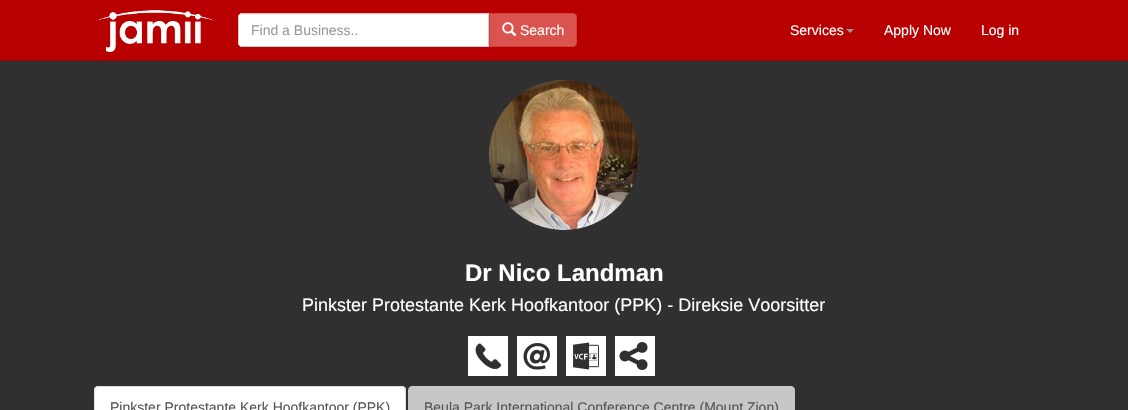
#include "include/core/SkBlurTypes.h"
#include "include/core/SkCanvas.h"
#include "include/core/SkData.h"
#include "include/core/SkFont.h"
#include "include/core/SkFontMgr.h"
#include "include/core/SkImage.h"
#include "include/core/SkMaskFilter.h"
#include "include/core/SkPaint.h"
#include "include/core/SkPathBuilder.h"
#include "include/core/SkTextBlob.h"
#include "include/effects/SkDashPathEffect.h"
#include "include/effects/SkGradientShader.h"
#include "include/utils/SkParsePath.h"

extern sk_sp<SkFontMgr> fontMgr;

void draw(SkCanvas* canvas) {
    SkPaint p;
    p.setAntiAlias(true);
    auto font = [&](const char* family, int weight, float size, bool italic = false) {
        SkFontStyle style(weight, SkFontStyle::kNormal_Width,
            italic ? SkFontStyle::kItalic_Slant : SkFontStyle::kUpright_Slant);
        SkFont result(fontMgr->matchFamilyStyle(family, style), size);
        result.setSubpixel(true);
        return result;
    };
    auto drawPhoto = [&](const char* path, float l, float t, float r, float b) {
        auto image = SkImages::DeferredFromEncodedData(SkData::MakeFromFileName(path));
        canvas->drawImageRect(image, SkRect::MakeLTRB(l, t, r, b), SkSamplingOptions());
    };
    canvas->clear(0xFF303030);
    p.setColor(0xFFB80000);
    canvas->drawRect(SkRect::MakeLTRB(0, 0, 1128, 60), p);
    p.setColor(0xFF940000);
    canvas->drawRect(SkRect::MakeLTRB(0, 60, 1128, 61), p);
    drawPhoto("media/1.png", 96, 10, 215, 52);
    p.setColor(0xFFFFFFFF);
    canvas->drawPath(SkPathBuilder().moveTo(242, 13).lineTo(489, 13).lineTo(489, 47).lineTo(242, 47).cubicTo(240, 47, 238, 45, 238, 43).lineTo(238, 17).cubicTo(238, 15, 240, 13, 242, 13).close().detach(), p);
    p.setColor(0xFFECECEC);
    canvas->drawPath(SkPathBuilder().moveTo(242, 15).lineTo(488, 15).lineTo(488, 14).lineTo(242, 14).cubicTo(240, 14, 239, 16, 239, 18).cubicTo(239, 16, 240, 15, 242, 15).close().detach(), p);
    p.setStyle(SkPaint::kStroke_Style);
    p.setStrokeWidth(1);
    p.setColor(0xFFCCCCCC);
    canvas->drawPath(SkPathBuilder().moveTo(242, 13.5f).lineTo(488.5f, 13.5f).lineTo(488.5f, 46.5f).lineTo(242, 46.5f).cubicTo(240, 46.5f, 238.5f, 45, 238.5f, 43).lineTo(238.5f, 17).cubicTo(238.5f, 15, 240, 13.5f, 242, 13.5f).close().detach(), p);
    auto font1 = font("Liberation Sans", 400, 14);
    p.setStyle(SkPaint::kFill_Style);
    p.setColor(0xFF999999);
    canvas->drawString("Find a Business..", 251, 35, font1, p);
    p.setColor(0xFFD9534F);
    canvas->drawPath(SkPathBuilder().moveTo(489.5f, 13.5f).lineTo(573, 13.5f).cubicTo(575, 13.5f, 576.5f, 15, 576.5f, 17).lineTo(576.5f, 43).cubicTo(576.5f, 45, 575, 46.5f, 573, 46.5f).lineTo(489.5f, 46.5f).close().detach(), p);
    p.setStyle(SkPaint::kStroke_Style);
    p.setColor(0xFFD43F3A);
    canvas->drawPath(SkPathBuilder().moveTo(489.5f, 13.5f).lineTo(573, 13.5f).cubicTo(575, 13.5f, 576.5f, 15, 576.5f, 17).lineTo(576.5f, 43).cubicTo(576.5f, 45, 575, 46.5f, 573, 46.5f).lineTo(489.5f, 46.5f).close().detach(), p);
    drawPhoto("media/2.png", 502, 22, 517, 37);
    p.setStyle(SkPaint::kFill_Style);
    p.setColor(0xFFFFFFFF);
    canvas->drawString("Search", 520, 35, font1, p);
    canvas->drawString("Services", 790, 35, font1, p);
    p.setColor(0xFF999999);
    canvas->drawPath(SkPathBuilder().moveTo(846, 29).lineTo(854, 29).lineTo(850, 33).close().detach(), p);
    p.setColor(0xFFFFFFFF);
    canvas->drawString("Apply Now", 884, 35, font1, p);
    canvas->drawString("Log in", 981, 35, font1, p);
    drawPhoto("media/3.png", 489, 80, 639, 230);
    auto font2 = font("Liberation Sans", 700, 24);
    canvas->drawString("Dr Nico Landman", 465, 281, font2, p);
    auto font3 = font("Liberation Sans", 400, 18);
    canvas->drawString("Pinkster Protestante Kerk Hoofkantoor (PPK) - Direksie Voorsitter", 302, 311, font3, p);
    drawPhoto("media/4.png", 468, 336, 508, 376);
    drawPhoto("media/5.png", 517, 336, 557, 376);
    drawPhoto("media/6.png", 566, 336, 606, 376);
    drawPhoto("media/7.png", 615, 336, 655, 376);
    canvas->drawPath(SkPathBuilder().moveTo(98, 386).lineTo(402, 386).cubicTo(404, 386, 406, 388, 406, 390).lineTo(406, 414).lineTo(94, 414).lineTo(94, 390).cubicTo(94, 388, 96, 386, 98, 386).close().detach(), p);
    p.setColor(0xFFDDDDDD);
    canvas->drawPath(SkPathBuilder().moveTo(98, 386).lineTo(95, 387).lineTo(96, 388).lineTo(98, 387).lineTo(402, 387).lineTo(404, 388).lineTo(405, 387).lineTo(402, 386).close().detach(), p);
    canvas->drawPath(SkPathBuilder().moveTo(406, 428).lineTo(406, 390).cubicTo(406, 389, 406, 388, 405, 387).lineTo(404, 388).cubicTo(406, 390, 405, 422, 405, 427).close().detach(), p);
    canvas->drawPath(SkPathBuilder().moveTo(94, 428).lineTo(95, 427).cubicTo(95, 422, 94, 390, 96, 388).lineTo(95, 387).lineTo(94, 390).close().detach(), p);
    p.setColor(0xFF555555);
    canvas->drawString("Pinkster Protestante Kerk Hoofkantoor (PPK)", 110, 412, font1, p);
    p.setColor(0xFFC7C7C7);
    canvas->drawPath(SkPathBuilder().moveTo(412, 386).lineTo(791, 386).cubicTo(793, 386, 795, 388, 795, 390).lineTo(795, 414).lineTo(408, 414).lineTo(408, 390).cubicTo(408, 388, 410, 386, 412, 386).close().detach(), p);
    p.setColor(0xFF555555);
    canvas->drawString("Beula Park International Conference Centre (Mount Zion)", 424, 412, font1, p);
}
